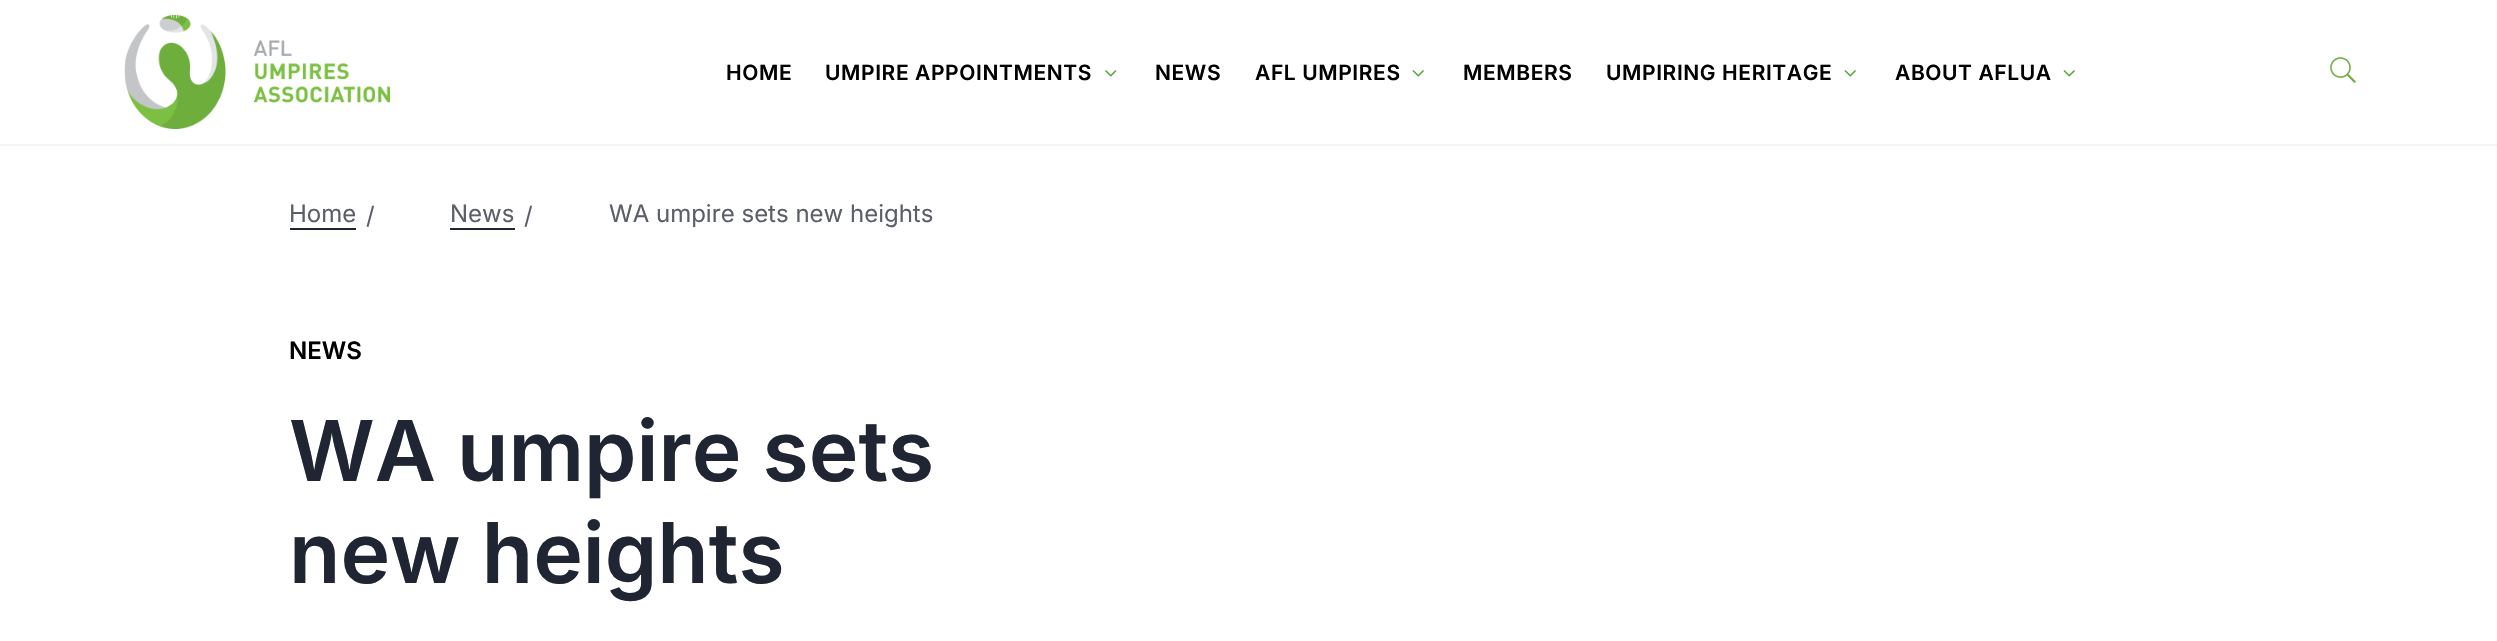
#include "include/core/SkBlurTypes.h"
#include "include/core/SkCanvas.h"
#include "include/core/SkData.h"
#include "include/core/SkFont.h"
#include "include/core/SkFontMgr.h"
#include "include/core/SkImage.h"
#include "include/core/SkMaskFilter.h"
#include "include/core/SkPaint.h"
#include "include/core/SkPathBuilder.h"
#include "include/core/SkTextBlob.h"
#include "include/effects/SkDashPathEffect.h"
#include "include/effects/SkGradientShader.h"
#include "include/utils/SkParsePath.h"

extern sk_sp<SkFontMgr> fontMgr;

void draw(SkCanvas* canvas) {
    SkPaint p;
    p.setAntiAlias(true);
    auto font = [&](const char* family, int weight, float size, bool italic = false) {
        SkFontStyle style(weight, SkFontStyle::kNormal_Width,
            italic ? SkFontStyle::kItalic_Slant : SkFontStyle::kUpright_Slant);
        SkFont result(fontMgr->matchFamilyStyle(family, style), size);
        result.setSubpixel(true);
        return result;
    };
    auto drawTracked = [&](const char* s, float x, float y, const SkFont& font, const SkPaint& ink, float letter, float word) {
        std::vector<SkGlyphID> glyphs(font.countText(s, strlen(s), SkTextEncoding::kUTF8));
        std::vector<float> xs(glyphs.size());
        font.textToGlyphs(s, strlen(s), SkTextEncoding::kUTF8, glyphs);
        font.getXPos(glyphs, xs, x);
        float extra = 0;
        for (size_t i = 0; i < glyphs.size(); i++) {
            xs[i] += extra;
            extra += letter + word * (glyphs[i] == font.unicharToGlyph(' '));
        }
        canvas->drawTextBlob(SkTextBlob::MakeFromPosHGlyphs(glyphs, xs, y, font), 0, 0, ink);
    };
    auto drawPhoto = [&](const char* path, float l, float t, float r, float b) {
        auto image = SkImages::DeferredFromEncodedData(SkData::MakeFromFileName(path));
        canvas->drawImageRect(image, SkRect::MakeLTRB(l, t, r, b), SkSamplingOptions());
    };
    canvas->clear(0xFFFFFFFF);
    p.setColor(0xFFF5F5F5);
    canvas->drawRect(SkRect::MakeLTRB(0, 144, 2497, 146), p);
    drawPhoto("media/1.png", 124, 15, 390, 129);
    auto font1 = font("Inter", 600, 21);
    p.setColor(0xFF000000);
    drawTracked("HOME", 726, 80, font1, p, 0.6f, 0);
    drawTracked("UMPIRE APPOINTMENTS", 825, 80, font1, p, 0.6f, 0);
    drawPhoto("media/2.png", 1105, 70, 1117, 77);
    drawTracked("NEWS", 1155, 80, font1, p, 0.6f, 0);
    drawTracked("AFL UMPIRES", 1255, 80, font1, p, 0.6f, 0);
    drawPhoto("media/3.png", 1412, 70, 1424, 77);
    drawTracked("MEMBERS", 1463, 80, font1, p, 0.6f, 0);
    drawTracked("UMPIRING HERITAGE", 1606, 80, font1, p, 0.6f, 0);
    drawPhoto("media/3.png", 1844, 70, 1856, 77);
    drawTracked("ABOUT AFLUA", 1895, 80, font1, p, 0.6f, 0);
    drawPhoto("media/3.png", 2063, 70, 2075, 77);
    drawPhoto("media/4.png", 2330, 57, 2356, 83);
    auto font2 = font("Inter", 400, 24);
    p.setColor(0xFF5C5F6A);
    canvas->drawString("Home", 289, 222, font2, p);
    p.setColor(0xFF202533);
    canvas->drawRect(SkRect::MakeLTRB(290, 228, 356, 230), p);
    p.setColor(0xFF5C5F6A);
    canvas->drawString("/", 366, 224, font2, p);
    canvas->drawString("News", 450, 222, font2, p);
    p.setColor(0xFF202533);
    canvas->drawRect(SkRect::MakeLTRB(450, 228, 515, 230), p);
    p.setColor(0xFF5C5F6A);
    canvas->drawString("/", 524, 224, font2, p);
    canvas->drawString("WA umpire sets new heights", 609, 222, font2, p);
    auto font3 = font("Inter", 600, 24);
    p.setColor(0xFF000000);
    canvas->drawString("NEWS", 289, 359, font3, p);
    auto font4 = font("Inter", 600, 84);
    p.setColor(0xFF202533);
    canvas->drawString("WA umpire sets", 289, 481, font4, p);
    canvas->drawString("new heights", 289, 583, font4, p);
}
